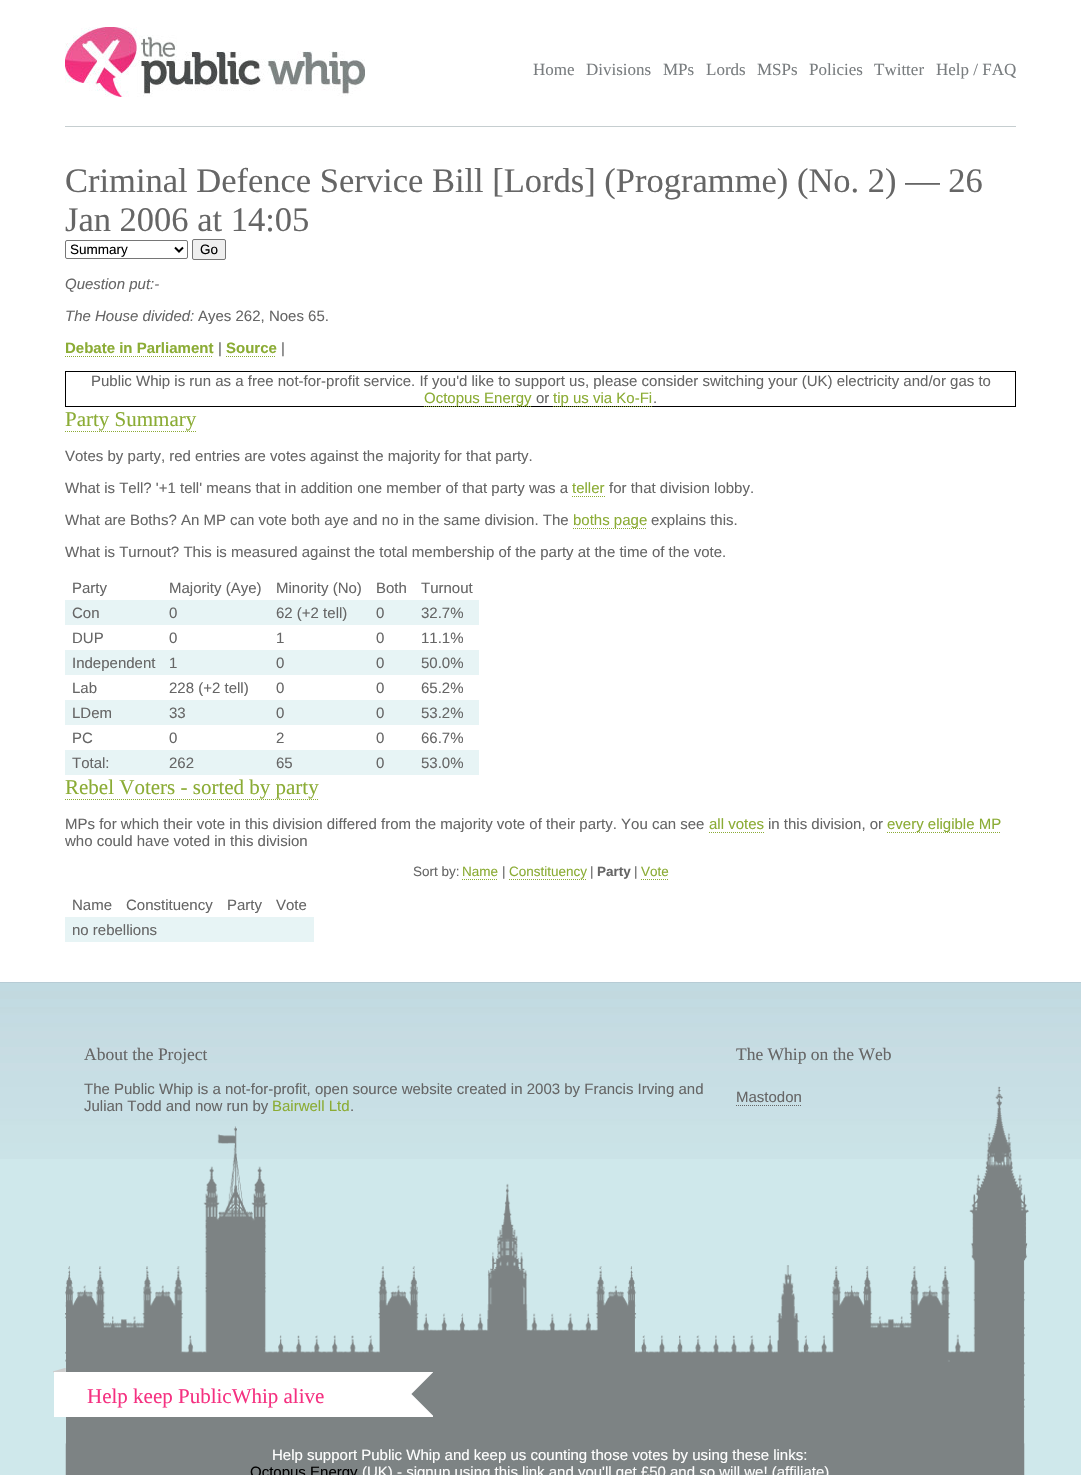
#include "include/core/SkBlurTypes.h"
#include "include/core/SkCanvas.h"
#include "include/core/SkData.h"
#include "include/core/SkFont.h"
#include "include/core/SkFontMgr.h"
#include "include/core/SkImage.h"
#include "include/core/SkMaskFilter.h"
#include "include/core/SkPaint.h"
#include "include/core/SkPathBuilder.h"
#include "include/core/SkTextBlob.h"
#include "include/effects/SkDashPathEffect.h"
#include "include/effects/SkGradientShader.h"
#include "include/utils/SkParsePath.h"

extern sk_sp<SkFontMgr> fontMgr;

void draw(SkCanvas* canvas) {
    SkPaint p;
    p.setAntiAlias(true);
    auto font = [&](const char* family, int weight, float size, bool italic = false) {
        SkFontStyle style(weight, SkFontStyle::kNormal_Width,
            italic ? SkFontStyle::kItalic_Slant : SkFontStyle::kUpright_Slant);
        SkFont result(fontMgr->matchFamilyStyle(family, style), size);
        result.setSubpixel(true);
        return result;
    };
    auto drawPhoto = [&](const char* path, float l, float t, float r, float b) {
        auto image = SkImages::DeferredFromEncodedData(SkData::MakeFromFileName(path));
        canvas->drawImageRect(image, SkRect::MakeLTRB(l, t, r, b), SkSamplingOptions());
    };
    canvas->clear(0xFFFFFFFF);
    p.setColor(0xFFC6CED0);
    canvas->drawRect(SkRect::MakeLTRB(65, 126, 1016, 127), p);
    drawPhoto("media/1.png", 65, 27, 365, 97);
    auto font1 = font("Liberation Serif", 400, 17);
    p.setColor(0xFF797D7F);
    {
        const struct { const char* s; float x, y; } items[] = {
            {"Home", 533, 75},
            {"Divisions", 586, 75},
            {"MPs", 663, 75},
            {"Lords", 706, 75},
            {"MSPs", 757, 75},
            {"Policies", 809, 75},
            {"Twitter", 874, 75},
            {"Help / FAQ", 936, 75},
        };
        for (auto [s, x, y] : items) {
            canvas->drawString(s, x, y, font1, p);
        }
    }
    auto font2 = font("Liberation Serif", 400, 34.5f);
    p.setColor(0xFF666666);
    canvas->drawString("Criminal Defence Service Bill [Lords] (Programme) (No. 2) — 26", 65, 192, font2, p);
    canvas->drawString("Jan 2006 at 14:05", 65, 231, font2, p);
    p.setStyle(SkPaint::kStroke_Style);
    p.setStrokeWidth(1);
    p.setColor(0xFF767676);
    canvas->drawRoundRect(SkRect::MakeLTRB(65.5f, 240.5f, 187.5f, 258.5f), 1.5f, 1.5f, p);
    p.setStrokeWidth(2);
    p.setColor(0xFF000000);
    canvas->drawPath(SkPathBuilder().moveTo(175, 247.5f).lineTo(179, 251.5f).lineTo(183, 247.5f).detach(), p);
    auto font3 = font("Liberation Sans", 400, 13.5f);
    p.setStyle(SkPaint::kFill_Style);
    canvas->drawString("Summary", 70, 254, font3, p);
    p.setColor(0xFFEFEFEF);
    canvas->drawRoundRect(SkRect::MakeLTRB(192.5f, 239.5f, 225.5f, 259.5f), 1.5f, 1.5f, p);
    p.setStyle(SkPaint::kStroke_Style);
    p.setStrokeWidth(1);
    p.setColor(0xFF767676);
    canvas->drawRoundRect(SkRect::MakeLTRB(192.5f, 239.5f, 225.5f, 259.5f), 1.5f, 1.5f, p);
    p.setStyle(SkPaint::kFill_Style);
    p.setColor(0xFF000000);
    canvas->drawString("Go", 200, 254, font3, p);
    auto font4 = font("Liberation Sans", 400, 15, true);
    p.setColor(0xFF666666);
    canvas->drawString("Question put:-", 65, 289, font4, p);
    canvas->drawString("The House divided:", 65, 321, font4, p);
    auto font5 = font("Liberation Sans", 400, 15);
    canvas->drawString("Ayes 262, Noes 65.", 198, 321, font5, p);
    auto font6 = font("Liberation Sans", 700, 15);
    p.setColor(0xFF8BAC35);
    canvas->drawString("Debate in Parliament", 65, 353, font6, p);
    p.setStyle(SkPaint::kStroke_Style);
    p.setPathEffect(SkDashPathEffect::Make({{1, 1}}, 0));
    canvas->drawPath(SkPathBuilder().moveTo(65, 356.5f).lineTo(213, 356.5f).detach(), p);
    p.setPathEffect(nullptr);
    p.setStyle(SkPaint::kFill_Style);
    p.setColor(0xFF666666);
    canvas->drawString("|", 218, 353, font5, p);
    p.setColor(0xFF8BAC35);
    canvas->drawString("Source", 226, 353, font6, p);
    p.setStyle(SkPaint::kStroke_Style);
    p.setPathEffect(SkDashPathEffect::Make({{1, 1}}, 0));
    canvas->drawPath(SkPathBuilder().moveTo(226, 356.5f).lineTo(276, 356.5f).detach(), p);
    p.setPathEffect(nullptr);
    p.setStyle(SkPaint::kFill_Style);
    p.setColor(0xFF666666);
    canvas->drawString("|", 281, 353, font5, p);
    p.setStyle(SkPaint::kStroke_Style);
    p.setColor(0xFF000000);
    canvas->drawRect(SkRect::MakeLTRB(65.5f, 371.5f, 1015.5f, 406.5f), p);
    p.setStyle(SkPaint::kFill_Style);
    p.setColor(0xFF666666);
    canvas->drawString("Public Whip is run as a free not-for-profit service. If you'd like to support us, please consider switching your (UK) electricity and/or gas to", 91, 386, font5, p);
    p.setStyle(SkPaint::kStroke_Style);
    p.setColor(0xFF8BAC35);
    p.setPathEffect(SkDashPathEffect::Make({{1, 1}}, 0));
    canvas->drawPath(SkPathBuilder().moveTo(424, 406.5f).lineTo(532, 406.5f).detach(), p);
    p.setPathEffect(nullptr);
    p.setStyle(SkPaint::kFill_Style);
    canvas->drawString("Octopus Energy", 424, 403, font5, p);
    p.setColor(0xFF666666);
    canvas->drawString("or", 536, 403, font5, p);
    p.setStyle(SkPaint::kStroke_Style);
    p.setColor(0xFF8BAC35);
    p.setPathEffect(SkDashPathEffect::Make({{1, 1}}, 0));
    canvas->drawPath(SkPathBuilder().moveTo(553, 406.5f).lineTo(653, 406.5f).detach(), p);
    p.setPathEffect(nullptr);
    p.setStyle(SkPaint::kFill_Style);
    canvas->drawString("tip us via Ko-Fi", 553, 403, font5, p);
    p.setColor(0xFF666666);
    canvas->drawString(".", 653, 403, font5, p);
    auto font7 = font("Liberation Serif", 400, 21);
    p.setColor(0xFF8BAC35);
    canvas->drawString("Party Summary", 65, 426, font7, p);
    p.setStyle(SkPaint::kStroke_Style);
    p.setPathEffect(SkDashPathEffect::Make({{1, 1}}, 0));
    canvas->drawPath(SkPathBuilder().moveTo(65, 431.5f).lineTo(196, 431.5f).detach(), p);
    p.setPathEffect(nullptr);
    p.setStyle(SkPaint::kFill_Style);
    p.setColor(0xFF666666);
    canvas->drawString("Votes by party, red entries are votes against the majority for that party.", 65, 461, font5, p);
    canvas->drawString("What is Tell? '+1 tell' means that in addition one member of that party was a", 65, 493, font5, p);
    p.setColor(0xFF8BAC35);
    canvas->drawString("teller", 572, 493, font5, p);
    p.setStyle(SkPaint::kStroke_Style);
    p.setPathEffect(SkDashPathEffect::Make({{1, 1}}, 0));
    canvas->drawPath(SkPathBuilder().moveTo(572, 496.5f).lineTo(605, 496.5f).detach(), p);
    p.setPathEffect(nullptr);
    p.setStyle(SkPaint::kFill_Style);
    p.setColor(0xFF666666);
    canvas->drawString("for that division lobby.", 609, 493, font5, p);
    canvas->drawString("What are Boths? An MP can vote both aye and no in the same division. The", 65, 525, font5, p);
    p.setStyle(SkPaint::kStroke_Style);
    p.setColor(0xFF8BAC35);
    p.setPathEffect(SkDashPathEffect::Make({{1, 1}}, 0));
    canvas->drawPath(SkPathBuilder().moveTo(573, 528.5f).lineTo(647, 528.5f).detach(), p);
    p.setPathEffect(nullptr);
    p.setStyle(SkPaint::kFill_Style);
    canvas->drawString("boths page", 573, 525, font5, p);
    p.setColor(0xFF666666);
    {
        const struct { const char* s; float x, y; } items[] = {
            {"explains this.", 651, 525},
            {"What is Turnout? This is measured against the total membership of the party at the time of the vote.", 65, 557},
            {"Party", 72, 593},
            {"Majority (Aye)", 169, 593},
            {"Minority (No)", 276, 593},
            {"Both", 376, 593},
            {"Turnout", 421, 593},
        };
        for (auto [s, x, y] : items) {
            canvas->drawString(s, x, y, font5, p);
        }
    }
    p.setColor(0xFFE7F4F5);
    canvas->drawRect(SkRect::MakeLTRB(65, 600, 479, 625), p);
    p.setColor(0xFF666666);
    {
        const struct { const char* s; float x, y; } items[] = {
            {"Con", 72, 618},
            {"0", 169, 618},
            {"62 (+2 tell)", 276, 618},
            {"0", 376, 618},
            {"32.7%", 421, 618},
            {"DUP", 72, 643},
            {"0", 169, 643},
            {"1", 276, 643},
            {"0", 376, 643},
            {"11.1%", 421, 643},
        };
        for (auto [s, x, y] : items) {
            canvas->drawString(s, x, y, font5, p);
        }
    }
    p.setColor(0xFFE7F4F5);
    canvas->drawRect(SkRect::MakeLTRB(65, 650, 479, 675), p);
    p.setColor(0xFF666666);
    {
        const struct { const char* s; float x, y; } items[] = {
            {"Independent", 72, 668},
            {"1", 169, 668},
            {"0", 276, 668},
            {"0", 376, 668},
            {"50.0%", 421, 668},
            {"Lab", 72, 693},
            {"228 (+2 tell)", 169, 693},
            {"0", 276, 693},
            {"0", 376, 693},
            {"65.2%", 421, 693},
        };
        for (auto [s, x, y] : items) {
            canvas->drawString(s, x, y, font5, p);
        }
    }
    p.setColor(0xFFE7F4F5);
    canvas->drawRect(SkRect::MakeLTRB(65, 700, 479, 725), p);
    p.setColor(0xFF666666);
    {
        const struct { const char* s; float x, y; } items[] = {
            {"LDem", 72, 718},
            {"33", 169, 718},
            {"0", 276, 718},
            {"0", 376, 718},
            {"53.2%", 421, 718},
            {"PC", 72, 743},
            {"0", 169, 743},
            {"2", 276, 743},
            {"0", 376, 743},
            {"66.7%", 421, 743},
        };
        for (auto [s, x, y] : items) {
            canvas->drawString(s, x, y, font5, p);
        }
    }
    p.setColor(0xFFE7F4F5);
    canvas->drawRect(SkRect::MakeLTRB(65, 750, 479, 775), p);
    p.setColor(0xFF666666);
    {
        const struct { const char* s; float x, y; } items[] = {
            {"Total:", 72, 768},
            {"262", 169, 768},
            {"65", 276, 768},
            {"0", 376, 768},
            {"53.0%", 421, 768},
        };
        for (auto [s, x, y] : items) {
            canvas->drawString(s, x, y, font5, p);
        }
    }
    p.setColor(0xFF8BAC35);
    canvas->drawString("Rebel Voters - sorted by party", 65, 794, font7, p);
    p.setStyle(SkPaint::kStroke_Style);
    p.setPathEffect(SkDashPathEffect::Make({{1, 1}}, 0));
    canvas->drawPath(SkPathBuilder().moveTo(65, 799.5f).lineTo(319, 799.5f).detach(), p);
    p.setPathEffect(nullptr);
    p.setStyle(SkPaint::kFill_Style);
    p.setColor(0xFF666666);
    canvas->drawString("MPs for which their vote in this division differed from the majority vote of their party. You can see", 65, 829, font5, p);
    p.setColor(0xFF8BAC35);
    canvas->drawString("all votes", 709, 829, font5, p);
    p.setStyle(SkPaint::kStroke_Style);
    p.setPathEffect(SkDashPathEffect::Make({{1, 1}}, 0));
    canvas->drawPath(SkPathBuilder().moveTo(709, 832.5f).lineTo(764, 832.5f).detach(), p);
    p.setPathEffect(nullptr);
    p.setStyle(SkPaint::kFill_Style);
    p.setColor(0xFF666666);
    canvas->drawString("in this division, or", 768, 829, font5, p);
    p.setStyle(SkPaint::kStroke_Style);
    p.setColor(0xFF8BAC35);
    p.setPathEffect(SkDashPathEffect::Make({{1, 1}}, 0));
    canvas->drawPath(SkPathBuilder().moveTo(887, 832.5f).lineTo(1001, 832.5f).detach(), p);
    p.setPathEffect(nullptr);
    p.setStyle(SkPaint::kFill_Style);
    canvas->drawString("every eligible MP", 887, 829, font5, p);
    p.setColor(0xFF666666);
    canvas->drawString("who could have voted in this division", 65, 846, font5, p);
    canvas->drawString("Sort by:", 413, 876, font3, p);
    p.setColor(0xFF8BAC35);
    canvas->drawString("Name", 462, 876, font3, p);
    p.setStyle(SkPaint::kStroke_Style);
    p.setPathEffect(SkDashPathEffect::Make({{1, 1}}, 0));
    canvas->drawPath(SkPathBuilder().moveTo(462, 879.5f).lineTo(498, 879.5f).detach(), p);
    p.setPathEffect(nullptr);
    p.setStyle(SkPaint::kFill_Style);
    p.setColor(0xFF666666);
    canvas->drawString("|", 502, 876, font3, p);
    p.setColor(0xFF8BAC35);
    canvas->drawString("Constituency", 509, 876, font3, p);
    p.setStyle(SkPaint::kStroke_Style);
    p.setPathEffect(SkDashPathEffect::Make({{1, 1}}, 0));
    canvas->drawPath(SkPathBuilder().moveTo(509, 879.5f).lineTo(586, 879.5f).detach(), p);
    p.setPathEffect(nullptr);
    p.setStyle(SkPaint::kFill_Style);
    p.setColor(0xFF666666);
    canvas->drawString("|", 590, 876, font3, p);
    auto font8 = font("Liberation Sans", 700, 13.5f);
    canvas->drawString("Party", 597, 876, font8, p);
    canvas->drawString("|", 634, 876, font3, p);
    p.setColor(0xFF8BAC35);
    canvas->drawString("Vote", 641, 876, font3, p);
    p.setStyle(SkPaint::kStroke_Style);
    p.setPathEffect(SkDashPathEffect::Make({{1, 1}}, 0));
    canvas->drawPath(SkPathBuilder().moveTo(641, 879.5f).lineTo(668, 879.5f).detach(), p);
    p.setPathEffect(nullptr);
    p.setStyle(SkPaint::kFill_Style);
    p.setColor(0xFF666666);
    {
        const struct { const char* s; float x, y; } items[] = {
            {"Name", 72, 910},
            {"Constituency", 126, 910},
            {"Party", 227, 910},
            {"Vote", 276, 910},
        };
        for (auto [s, x, y] : items) {
            canvas->drawString(s, x, y, font5, p);
        }
    }
    p.setColor(0xFFE7F4F5);
    canvas->drawRect(SkRect::MakeLTRB(65, 917, 314, 942), p);
    p.setColor(0xFF666666);
    canvas->drawString("no rebellions", 72, 935, font5, p);
    p.setColor(0xFFCFE8EB);
    canvas->drawRect(SkRect::MakeLTRB(0, 1159, 1081, 1475), p);
    drawPhoto("media/2.png", 0, 983, 1081, 1159);
    p.setColor(0xFFB7CCD5);
    canvas->drawRect(SkRect::MakeLTRB(0, 982, 1081, 983), p);
    auto font9 = font("Liberation Serif", 400, 17.5f);
    p.setColor(0xFF666666);
    canvas->drawString("About the Project", 84, 1060, font9, p);
    drawPhoto("media/3.png", 53, 1086, 1029, 1475);
    canvas->drawString("The Public Whip is a not-for-profit, open source website created in 2003 by Francis Irving and", 84, 1094, font5, p);
    canvas->drawString("Julian Todd and now run by", 84, 1111, font5, p);
    p.setColor(0xFF8BAC35);
    canvas->drawString("Bairwell Ltd", 272, 1111, font5, p);
    p.setColor(0xFF666666);
    canvas->drawString(".", 350, 1111, font5, p);
    canvas->drawString("The Whip on the Web", 736, 1060, font9, p);
    canvas->drawString("Mastodon", 736, 1102, font5, p);
    p.setStyle(SkPaint::kStroke_Style);
    p.setPathEffect(SkDashPathEffect::Make({{1, 1}}, 0));
    canvas->drawPath(SkPathBuilder().moveTo(736, 1105.5f).lineTo(802, 1105.5f).detach(), p);
    p.setPathEffect(nullptr);
    p.setStyle(SkPaint::kFill_Style);
    p.setColor(0xFFF53181);
    canvas->drawString("Help keep PublicWhip alive", 87, 1403, font7, p);
    p.setColor(0xFFFFFFFF);
    canvas->drawString("Help support Public Whip and keep us counting those votes by using these links:", 272, 1460, font5, p);
    p.setColor(0xFF000000);
    canvas->drawString("Octopus Energy", 250, 1477, font5, p);
    p.setColor(0xFFFFFFFF);
    canvas->drawString("(UK) - signup using this link and you'll get £50 and so will we! (affiliate)", 362, 1477, font5, p);
}
